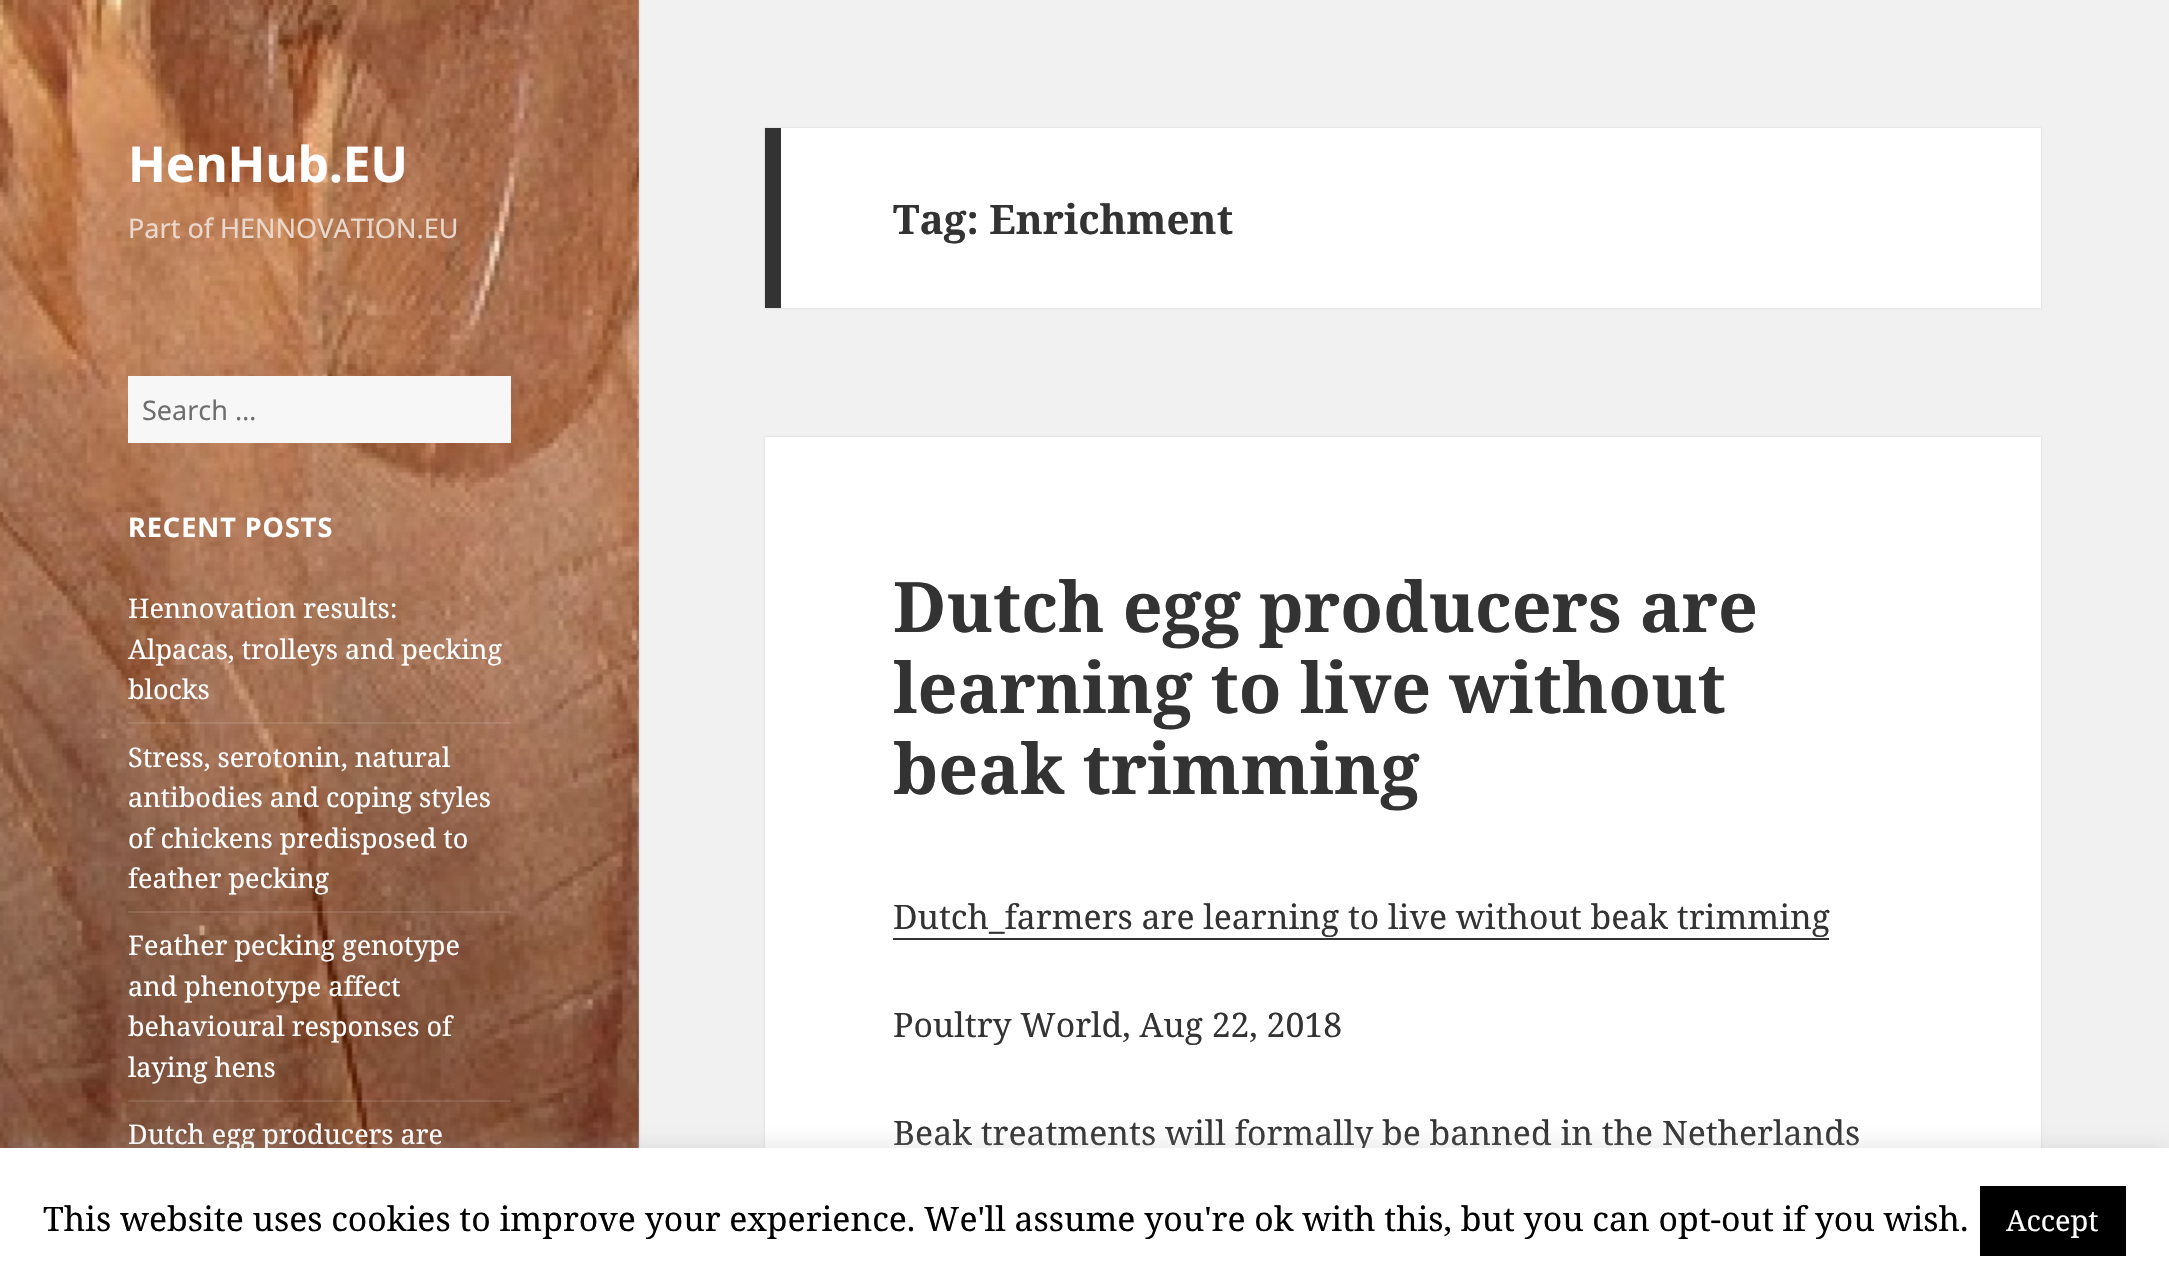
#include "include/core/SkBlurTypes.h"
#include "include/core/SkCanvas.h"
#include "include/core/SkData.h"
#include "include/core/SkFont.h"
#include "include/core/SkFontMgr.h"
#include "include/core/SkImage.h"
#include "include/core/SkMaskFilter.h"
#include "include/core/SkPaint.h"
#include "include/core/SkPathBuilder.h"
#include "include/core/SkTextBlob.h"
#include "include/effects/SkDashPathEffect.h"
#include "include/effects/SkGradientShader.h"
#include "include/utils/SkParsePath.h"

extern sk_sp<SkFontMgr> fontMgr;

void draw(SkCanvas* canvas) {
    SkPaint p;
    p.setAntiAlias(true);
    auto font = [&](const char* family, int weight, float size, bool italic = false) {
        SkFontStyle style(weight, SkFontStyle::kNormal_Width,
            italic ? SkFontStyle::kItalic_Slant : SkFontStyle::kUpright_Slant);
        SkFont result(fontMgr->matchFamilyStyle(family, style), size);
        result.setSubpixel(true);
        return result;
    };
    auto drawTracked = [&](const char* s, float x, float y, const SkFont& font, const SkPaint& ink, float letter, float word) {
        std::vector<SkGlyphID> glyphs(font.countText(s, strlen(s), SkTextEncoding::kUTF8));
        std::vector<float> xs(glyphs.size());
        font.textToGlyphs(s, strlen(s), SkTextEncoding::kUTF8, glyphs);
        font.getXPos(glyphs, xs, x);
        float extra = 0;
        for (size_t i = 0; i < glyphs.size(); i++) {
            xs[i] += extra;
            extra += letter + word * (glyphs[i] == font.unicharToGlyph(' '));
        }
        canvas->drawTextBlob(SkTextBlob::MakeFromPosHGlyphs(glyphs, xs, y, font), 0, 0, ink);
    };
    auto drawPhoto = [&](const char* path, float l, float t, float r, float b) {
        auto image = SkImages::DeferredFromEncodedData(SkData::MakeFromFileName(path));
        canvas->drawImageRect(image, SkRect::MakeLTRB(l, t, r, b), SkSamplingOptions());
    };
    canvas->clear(0xFFF1F1F1);
    p.setColor(0x26000000);
    p.setMaskFilter(SkMaskFilter::MakeBlur(kNormal_SkBlurStyle, 1));
    canvas->drawRect(SkRect::MakeLTRB(0, 0, 639, 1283), p);
    p.setMaskFilter(nullptr);
    drawPhoto("media/1.png", 0, 0, 639, 1148);
    auto font1 = font("Noto Sans", 700, 49.5f);
    p.setColor(0xFFFFFFFF);
    canvas->drawString("HenHub.EU", 128, 182, font1, p);
    auto font2 = font("Noto Sans", 400, 27);
    p.setColor(0xFFEAD8CC);
    canvas->drawString("Part of HENNOVATION.EU", 128, 238, font2, p);
    p.setColor(0xFFF7F7F7);
    canvas->drawRect(SkRect::MakeLTRB(128, 376, 511, 443), p);
    p.setColor(0xFF6E6E6E);
    canvas->drawString("Search …", 142, 420, font2, p);
    auto font3 = font("Noto Sans", 700, 27);
    p.setColor(0xFFFFFFFF);
    drawTracked("RECENT POSTS", 128, 537, font3, p, 1, 0);
    auto font4 = font("Noto Serif", 400, 27);
    {
        const struct { const char* s; float x, y; } items[] = {
            {"Hennovation results:", 128, 618},
            {"Alpacas, trolleys and pecking", 128, 659},
            {"blocks", 128, 699},
        };
        for (auto [s, x, y] : items) {
            canvas->drawString(s, x, y, font4, p);
        }
    }
    p.setColor(0x1AFFFFFF);
    canvas->drawRect(SkRect::MakeLTRB(128, 722, 511, 724), p);
    p.setColor(0xFFFFFFFF);
    {
        const struct { const char* s; float x, y; } items[] = {
            {"Stress, serotonin, natural", 128, 767},
            {"antibodies and coping styles", 128, 807},
            {"of chickens predisposed to", 128, 848},
            {"feather pecking", 128, 888},
        };
        for (auto [s, x, y] : items) {
            canvas->drawString(s, x, y, font4, p);
        }
    }
    p.setColor(0x1AFFFFFF);
    canvas->drawRect(SkRect::MakeLTRB(128, 911, 511, 913), p);
    p.setColor(0xFFFFFFFF);
    {
        const struct { const char* s; float x, y; } items[] = {
            {"Feather pecking genotype", 128, 955},
            {"and phenotype affect", 128, 996},
            {"behavioural responses of", 128, 1036},
            {"laying hens", 128, 1077},
        };
        for (auto [s, x, y] : items) {
            canvas->drawString(s, x, y, font4, p);
        }
    }
    p.setColor(0x1AFFFFFF);
    canvas->drawRect(SkRect::MakeLTRB(128, 1100, 511, 1102), p);
    p.setColor(0xFFFFFFFF);
    canvas->drawString("Dutch egg producers are", 128, 1144, font4, p);
    p.setColor(0x26000000);
    p.setMaskFilter(SkMaskFilter::MakeBlur(kNormal_SkBlurStyle, 1));
    canvas->drawRect(SkRect::MakeLTRB(765, 128, 2041, 308), p);
    p.setMaskFilter(nullptr);
    p.setColor(0xFFFFFFFF);
    canvas->drawRect(SkRect::MakeLTRB(781, 128, 2041, 308), p);
    p.setColor(0xFF333333);
    canvas->drawRect(SkRect::MakeLTRB(765, 128, 781, 308), p);
    auto font5 = font("Noto Serif", 700, 40.5f);
    canvas->drawString("Tag: Enrichment", 893, 234, font5, p);
    p.setColor(0x26000000);
    p.setMaskFilter(SkMaskFilter::MakeBlur(kNormal_SkBlurStyle, 1));
    canvas->drawRect(SkRect::MakeLTRB(765, 437, 2041, 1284), p);
    p.setMaskFilter(nullptr);
    p.setColor(0xFFFFFFFF);
    canvas->drawRect(SkRect::MakeLTRB(765, 437, 2041, 1148), p);
    auto font6 = font("Noto Serif", 700, 69.75f);
    p.setColor(0xFF333333);
    {
        const struct { const char* s; float x, y; } items[] = {
            {"Dutch egg producers are", 893, 632},
            {"learning to live without", 893, 713},
            {"beak trimming", 893, 794},
        };
        for (auto [s, x, y] : items) {
            canvas->drawString(s, x, y, font6, p);
        }
    }
    auto font7 = font("Noto Serif", 400, 33.75f);
    canvas->drawString("Dutch_farmers are learning to live without beak trimming", 893, 929, font7, p);
    canvas->drawRect(SkRect::MakeLTRB(893, 938, 1829, 940), p);
    canvas->drawString("Poultry World, Aug 22, 2018", 893, 1037, font7, p);
    canvas->drawString("Beak treatments will formally be banned in the Netherlands", 893, 1145, font7, p);
    p.setColor(0x4DACABAB);
    p.setMaskFilter(SkMaskFilter::MakeBlur(kNormal_SkBlurStyle, 11));
    canvas->drawRect(SkRect::MakeLTRB(0, 1145, 2169, 1280), p);
    p.setMaskFilter(nullptr);
    p.setColor(0xFFFFFFFF);
    canvas->drawRect(SkRect::MakeLTRB(0, 1148, 2169, 1281), p);
    p.setColor(0xFF000000);
    canvas->drawString("This website uses cookies to improve your experience. We'll assume you're ok with this, but you can opt-out if you wish.", 43, 1231, font7, p);
    canvas->drawRect(SkRect::MakeLTRB(1980, 1186, 2126, 1256), p);
    auto font8 = font("Noto Serif", 400, 29);
    p.setColor(0xFFFFFFFF);
    canvas->drawString("Accept", 2006, 1231, font8, p);
}
